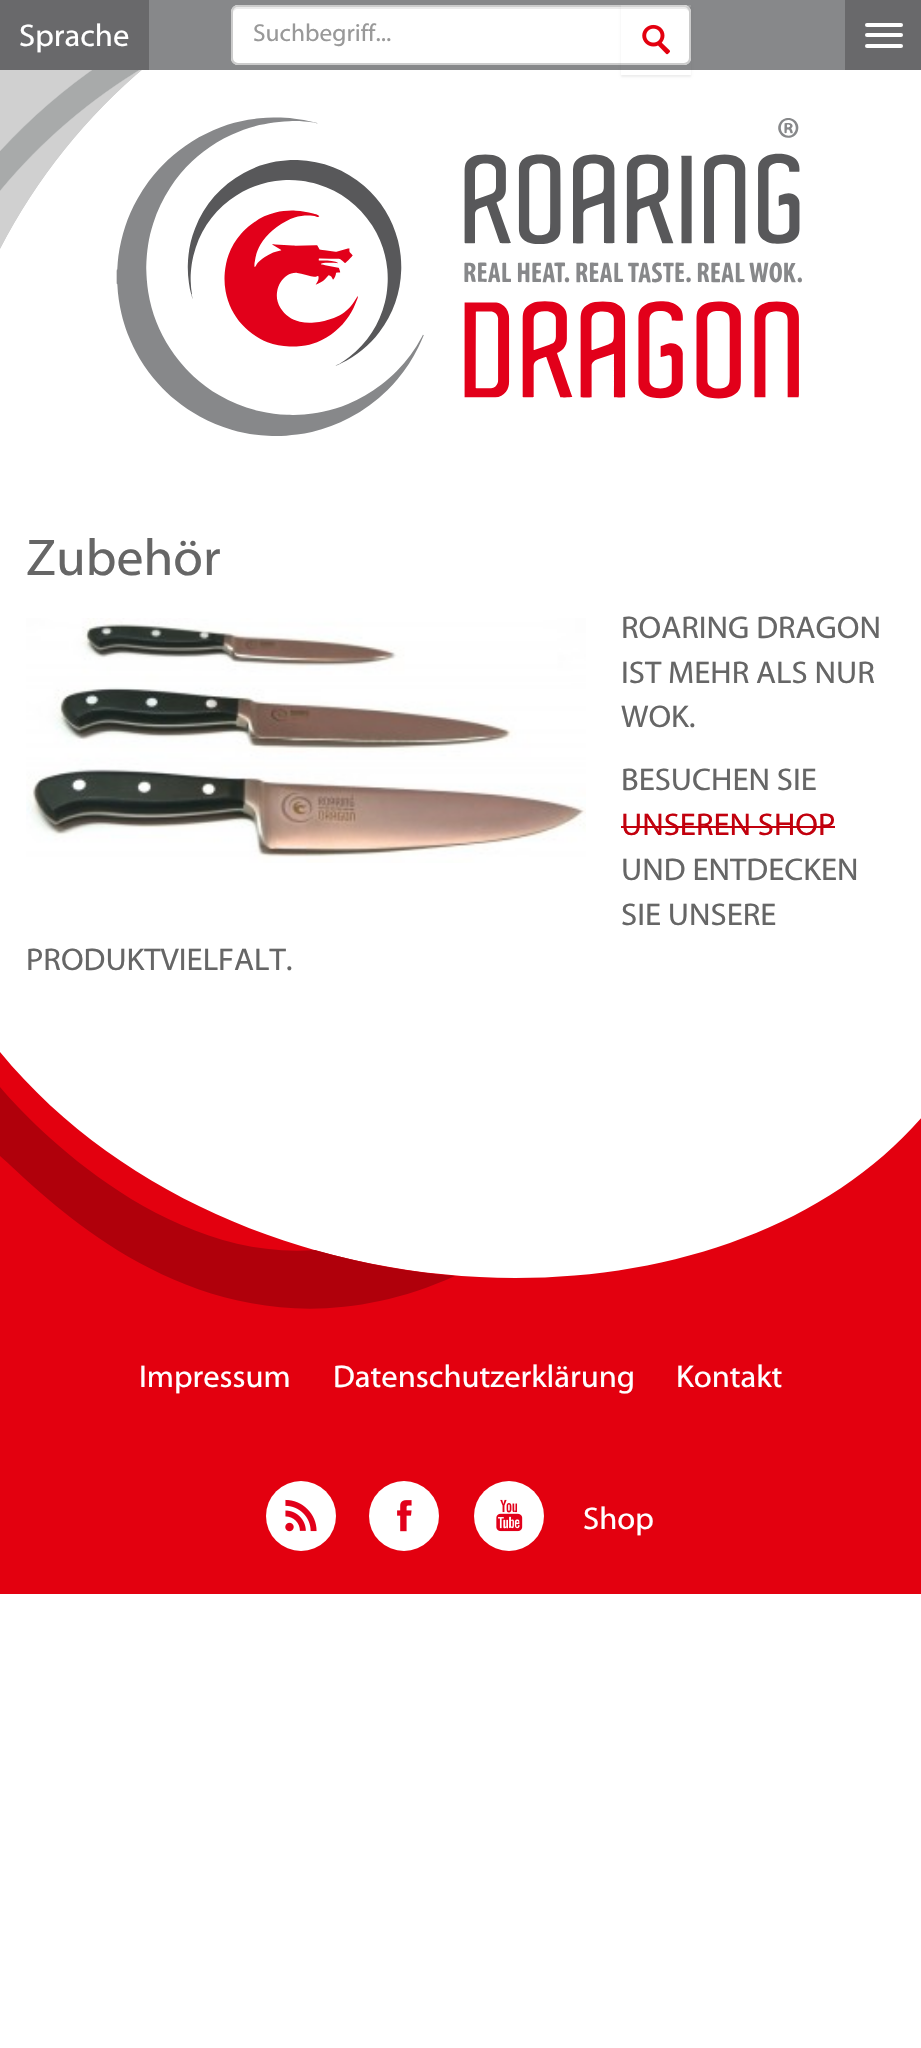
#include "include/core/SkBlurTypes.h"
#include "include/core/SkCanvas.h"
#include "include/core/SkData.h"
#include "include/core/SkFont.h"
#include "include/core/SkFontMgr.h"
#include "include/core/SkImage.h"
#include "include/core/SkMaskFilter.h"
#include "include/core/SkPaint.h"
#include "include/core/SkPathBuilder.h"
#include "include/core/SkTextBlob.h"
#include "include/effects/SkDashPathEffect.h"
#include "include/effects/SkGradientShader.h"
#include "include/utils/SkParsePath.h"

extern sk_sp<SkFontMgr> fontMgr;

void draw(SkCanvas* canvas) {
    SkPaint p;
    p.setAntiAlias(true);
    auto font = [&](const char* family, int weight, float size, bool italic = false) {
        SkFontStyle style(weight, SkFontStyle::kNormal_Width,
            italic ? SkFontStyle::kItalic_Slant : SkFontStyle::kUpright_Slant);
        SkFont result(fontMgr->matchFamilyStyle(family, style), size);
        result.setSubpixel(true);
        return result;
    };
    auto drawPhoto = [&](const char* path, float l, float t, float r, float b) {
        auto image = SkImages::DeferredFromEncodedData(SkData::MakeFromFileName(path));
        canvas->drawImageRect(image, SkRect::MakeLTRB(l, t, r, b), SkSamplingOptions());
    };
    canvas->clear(0xFFFFFFFF);
    p.setColor(0xFF87888A);
    canvas->drawRect(SkRect::MakeLTRB(149, 0, 845, 70), p);
    p.setColor(0xFF69696B);
    canvas->drawRect(SkRect::MakeLTRB(0, 0, 149, 70), p);
    auto font1 = font("Myriad", 400, 31.5f);
    p.setColor(0xFFFFFFFF);
    canvas->drawString("Sprache", 19, 46, font1, p);
    canvas->drawRoundRect(SkRect::MakeLTRB(231, 5, 691, 65), 7, 7, p);
    p.setColor(0xFFECECEC);
    canvas->drawPath(SkPathBuilder().moveTo(238, 9).lineTo(684, 9).cubicTo(687, 9, 690, 11, 690, 14).cubicTo(690, 11, 689, 7, 685, 7).lineTo(238, 7).cubicTo(234, 7, 233, 11, 233, 14).cubicTo(233, 11, 235, 9, 238, 9).close().detach(), p);
    p.setStyle(SkPaint::kStroke_Style);
    p.setStrokeWidth(2);
    p.setColor(0xFFCCCCCC);
    canvas->drawRoundRect(SkRect::MakeLTRB(232, 6, 690, 64), 6, 6, p);
    auto font2 = font("Myriad", 400, 24.5f);
    p.setStyle(SkPaint::kFill_Style);
    p.setColor(0xFF999999);
    canvas->drawString("Suchbegriff...", 253, 41, font2, p);
    canvas->save();
    canvas->clipPath(SkPathBuilder(SkPathFillType::kEvenOdd).moveTo(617, 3).lineTo(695, 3).lineTo(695, 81).lineTo(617, 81).close().moveTo(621, 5).lineTo(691, 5).lineTo(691, 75).lineTo(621, 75).close().detach(), true);
    p.setColor(0x12000000);
    p.setMaskFilter(SkMaskFilter::MakeBlur(kNormal_SkBlurStyle, 1));
    canvas->drawRect(SkRect::MakeLTRB(621, 7, 691, 77), p);
    p.setMaskFilter(nullptr);
    canvas->restore();
    p.setColor(0x26FFFFFF);
    canvas->drawRect(SkRect::MakeLTRB(621, 5, 691, 7), p);
    drawPhoto("media/1.png", 642, 24, 670, 55);
    p.setColor(0xFF69696B);
    canvas->drawRect(SkRect::MakeLTRB(845, 0, 921, 70), p);
    p.setColor(0xFFFFFFFF);
    canvas->drawRoundRect(SkRect::MakeLTRB(865, 23, 903, 27), 2, 2, p);
    canvas->drawRoundRect(SkRect::MakeLTRB(865, 33, 903, 37), 2, 2, p);
    canvas->drawRoundRect(SkRect::MakeLTRB(865, 44, 903, 48), 2, 2, p);
    drawPhoto("media/3.png", 0, 70, 142, 249);
    drawPhoto("media/2.png", 116, 117, 802, 436);
    auto font3 = font("Myriad", 400, 52);
    p.setColor(0xFF666666);
    canvas->drawString("Zubehör", 26, 575, font3, p);
    drawPhoto("media/4.png", 26, 618, 586, 863);
    {
        const struct { const char* s; float x, y; } items[] = {
            {"ROARING DRAGON", 621, 638},
            {"IST MEHR ALS NUR", 621, 683},
            {"WOK.", 621, 727},
            {"BESUCHEN SIE", 621, 790},
        };
        for (auto [s, x, y] : items) {
            canvas->drawString(s, x, y, font1, p);
        }
    }
    p.setColor(0xFFC2000D);
    canvas->drawString("UNSEREN SHOP", 621, 835, font1, p);
    canvas->drawRect(SkRect::MakeLTRB(621, 826, 835, 828), p);
    p.setColor(0xFF666666);
    {
        const struct { const char* s; float x, y; } items[] = {
            {"UND ENTDECKEN", 621, 880},
            {"SIE UNSERE", 621, 925},
            {"PRODUKTVIELFALT.", 26, 970},
        };
        for (auto [s, x, y] : items) {
            canvas->drawString(s, x, y, font1, p);
        }
    }
    p.setColor(0xFFE3000F);
    canvas->drawPath(SkPathBuilder().moveTo(0, 1052).lineTo(0, 1314).lineTo(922, 1314).lineTo(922, 1117).cubicTo(718, 1352, 228, 1329, 0, 1052).close().detach(), p);
    p.setColor(0xFFB0000B);
    canvas->drawPath(SkPathBuilder().moveTo(315, 1250).cubicTo(144, 1263, 0, 1087, 0, 1087).lineTo(0, 1156).cubicTo(46, 1196, 217, 1383, 455, 1276).cubicTo(408, 1272, 361, 1263, 315, 1250).close().detach(), p);
    p.setColor(0xFFE3000F);
    canvas->drawRect(SkRect::MakeLTRB(0, 1314, 921, 1594), p);
    p.setColor(0xFFFFFFFF);
    {
        const struct { const char* s; float x, y; } items[] = {
            {"Impressum", 139, 1387},
            {"Datenschutzerklärung", 333, 1387},
            {"Kontakt", 676, 1387},
        };
        for (auto [s, x, y] : items) {
            canvas->drawString(s, x, y, font1, p);
        }
    }
    canvas->drawCircle(301, 1516, 35, p);
    drawPhoto("media/5.png", 285, 1499, 317, 1532);
    canvas->drawCircle(404, 1516, 35, p);
    drawPhoto("media/6.png", 397, 1500, 412, 1532);
    canvas->drawCircle(509, 1516, 35, p);
    drawPhoto("media/7.png", 496, 1499, 523, 1532);
    canvas->drawString("Shop", 583, 1529, font1, p);
}
